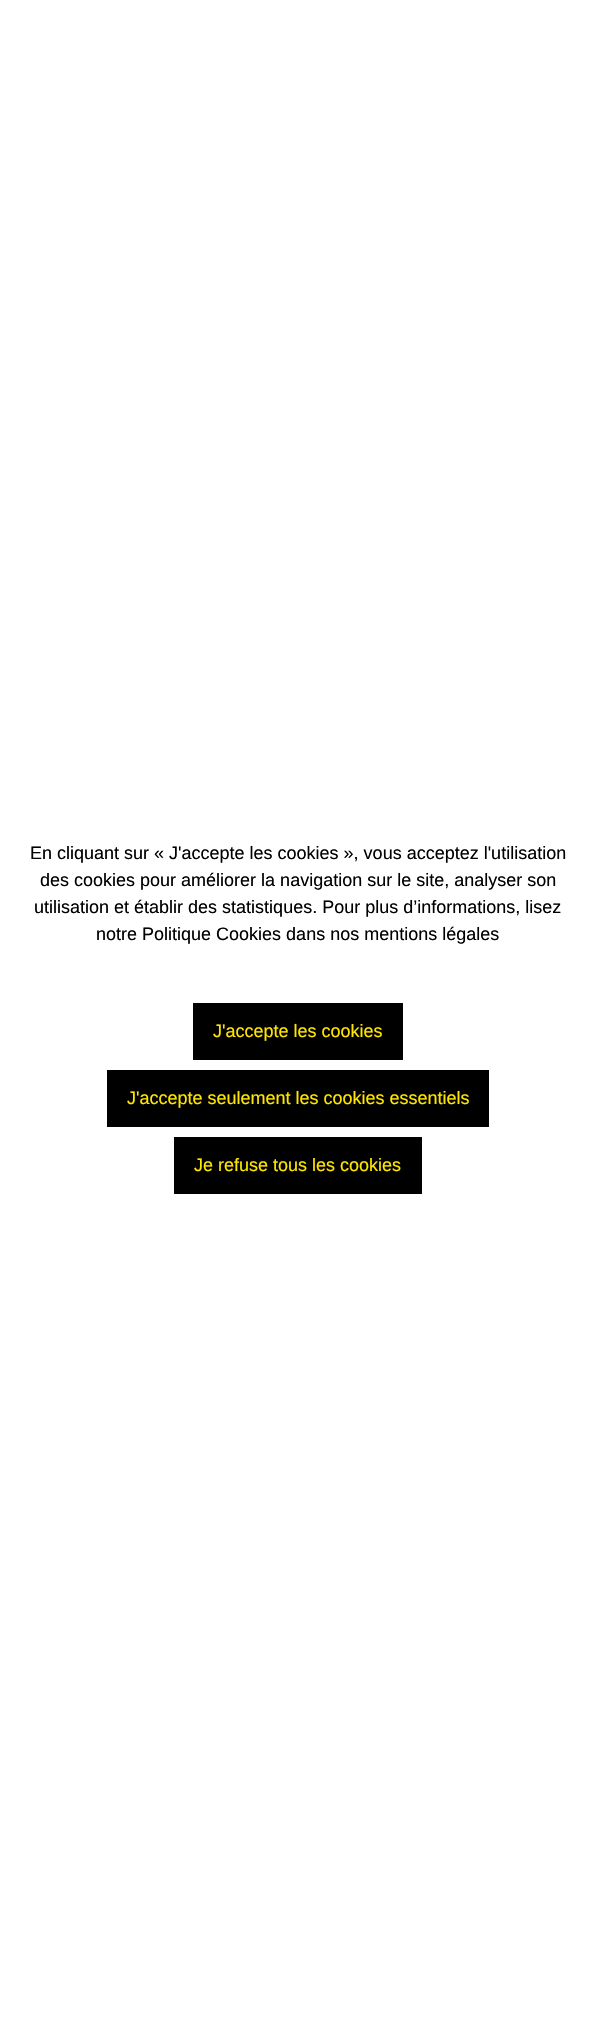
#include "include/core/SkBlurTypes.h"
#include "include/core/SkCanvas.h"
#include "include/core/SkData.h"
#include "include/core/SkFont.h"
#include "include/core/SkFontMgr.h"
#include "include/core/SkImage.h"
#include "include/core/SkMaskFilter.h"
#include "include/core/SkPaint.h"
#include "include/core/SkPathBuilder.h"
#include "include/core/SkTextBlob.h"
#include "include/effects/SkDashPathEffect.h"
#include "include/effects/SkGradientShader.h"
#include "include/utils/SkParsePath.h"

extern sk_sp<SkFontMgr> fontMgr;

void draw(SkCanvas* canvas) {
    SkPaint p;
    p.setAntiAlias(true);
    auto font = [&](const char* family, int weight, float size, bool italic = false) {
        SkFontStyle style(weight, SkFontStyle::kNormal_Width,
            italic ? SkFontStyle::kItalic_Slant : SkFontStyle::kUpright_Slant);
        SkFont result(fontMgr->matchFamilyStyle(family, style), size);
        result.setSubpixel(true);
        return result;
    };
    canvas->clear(0xFFFFFFFF);
    auto font1 = font("Liberation Sans", 400, 18);
    p.setColor(0xFF000000);
    {
        const struct { const char* s; float x, y; } items[] = {
            {"En cliquant sur « J'accepte les cookies », vous acceptez l'utilisation", 30, 859},
            {"des cookies pour améliorer la navigation sur le site, analyser son", 40, 886},
            {"utilisation et établir des statistiques. Pour plus d’informations, lisez", 34, 913},
            {"notre Politique Cookies dans nos mentions légales", 96, 940},
        };
        for (auto [s, x, y] : items) {
            canvas->drawString(s, x, y, font1, p);
        }
    }
    canvas->drawRect(SkRect::MakeLTRB(193, 1003, 403, 1060), p);
    p.setColor(0xFFFFE600);
    canvas->drawString("J'accepte les cookies", 213, 1037, font1, p);
    p.setColor(0xFF000000);
    canvas->drawRect(SkRect::MakeLTRB(107, 1070, 489, 1127), p);
    p.setColor(0xFFFFE600);
    canvas->drawString("J'accepte seulement les cookies essentiels", 127, 1104, font1, p);
    p.setColor(0xFF000000);
    canvas->drawRect(SkRect::MakeLTRB(174, 1137, 422, 1194), p);
    p.setColor(0xFFFFE600);
    canvas->drawString("Je refuse tous les cookies", 194, 1171, font1, p);
}
